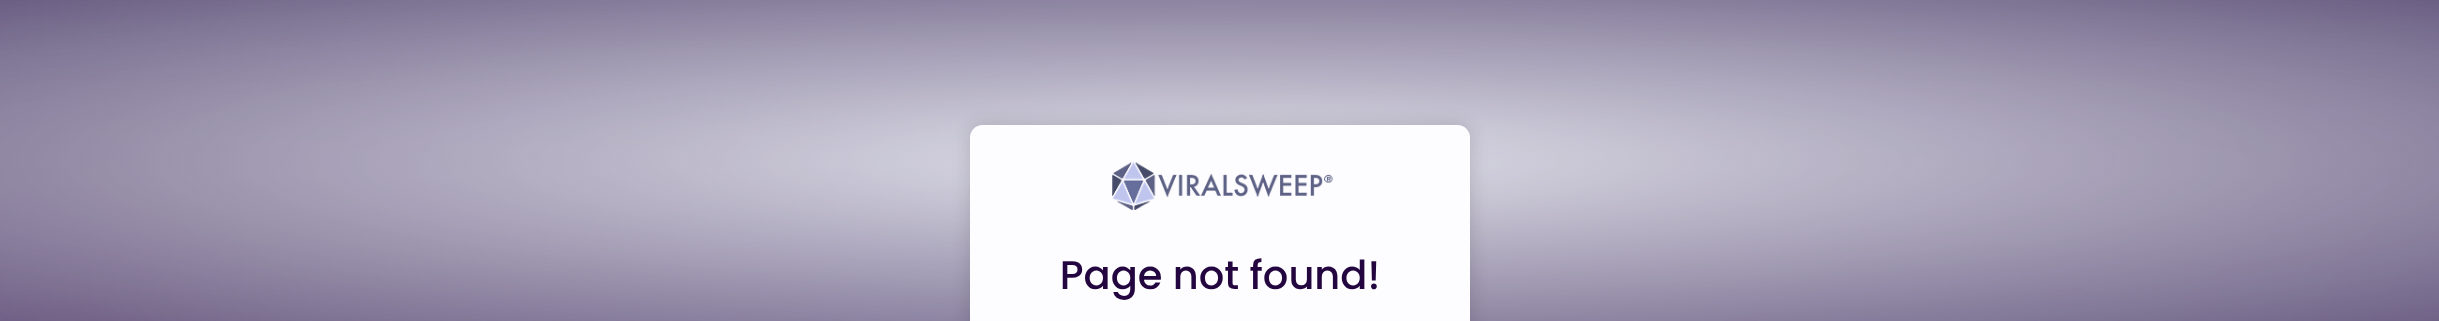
#include "include/core/SkBlurTypes.h"
#include "include/core/SkCanvas.h"
#include "include/core/SkData.h"
#include "include/core/SkFont.h"
#include "include/core/SkFontMgr.h"
#include "include/core/SkImage.h"
#include "include/core/SkMaskFilter.h"
#include "include/core/SkPaint.h"
#include "include/core/SkPathBuilder.h"
#include "include/core/SkTextBlob.h"
#include "include/effects/SkDashPathEffect.h"
#include "include/effects/SkGradientShader.h"
#include "include/utils/SkParsePath.h"

extern sk_sp<SkFontMgr> fontMgr;

void draw(SkCanvas* canvas) {
    SkPaint p;
    p.setAntiAlias(true);
    auto drawPhoto = [&](const char* path, float l, float t, float r, float b) {
        auto image = SkImages::DeferredFromEncodedData(SkData::MakeFromFileName(path));
        canvas->drawImageRect(image, SkRect::MakeLTRB(l, t, r, b), SkSamplingOptions());
    };
    canvas->clear(0xFFFFFFFF);
    drawPhoto("media/1.png", 0, 0, 2439, 321);
}
